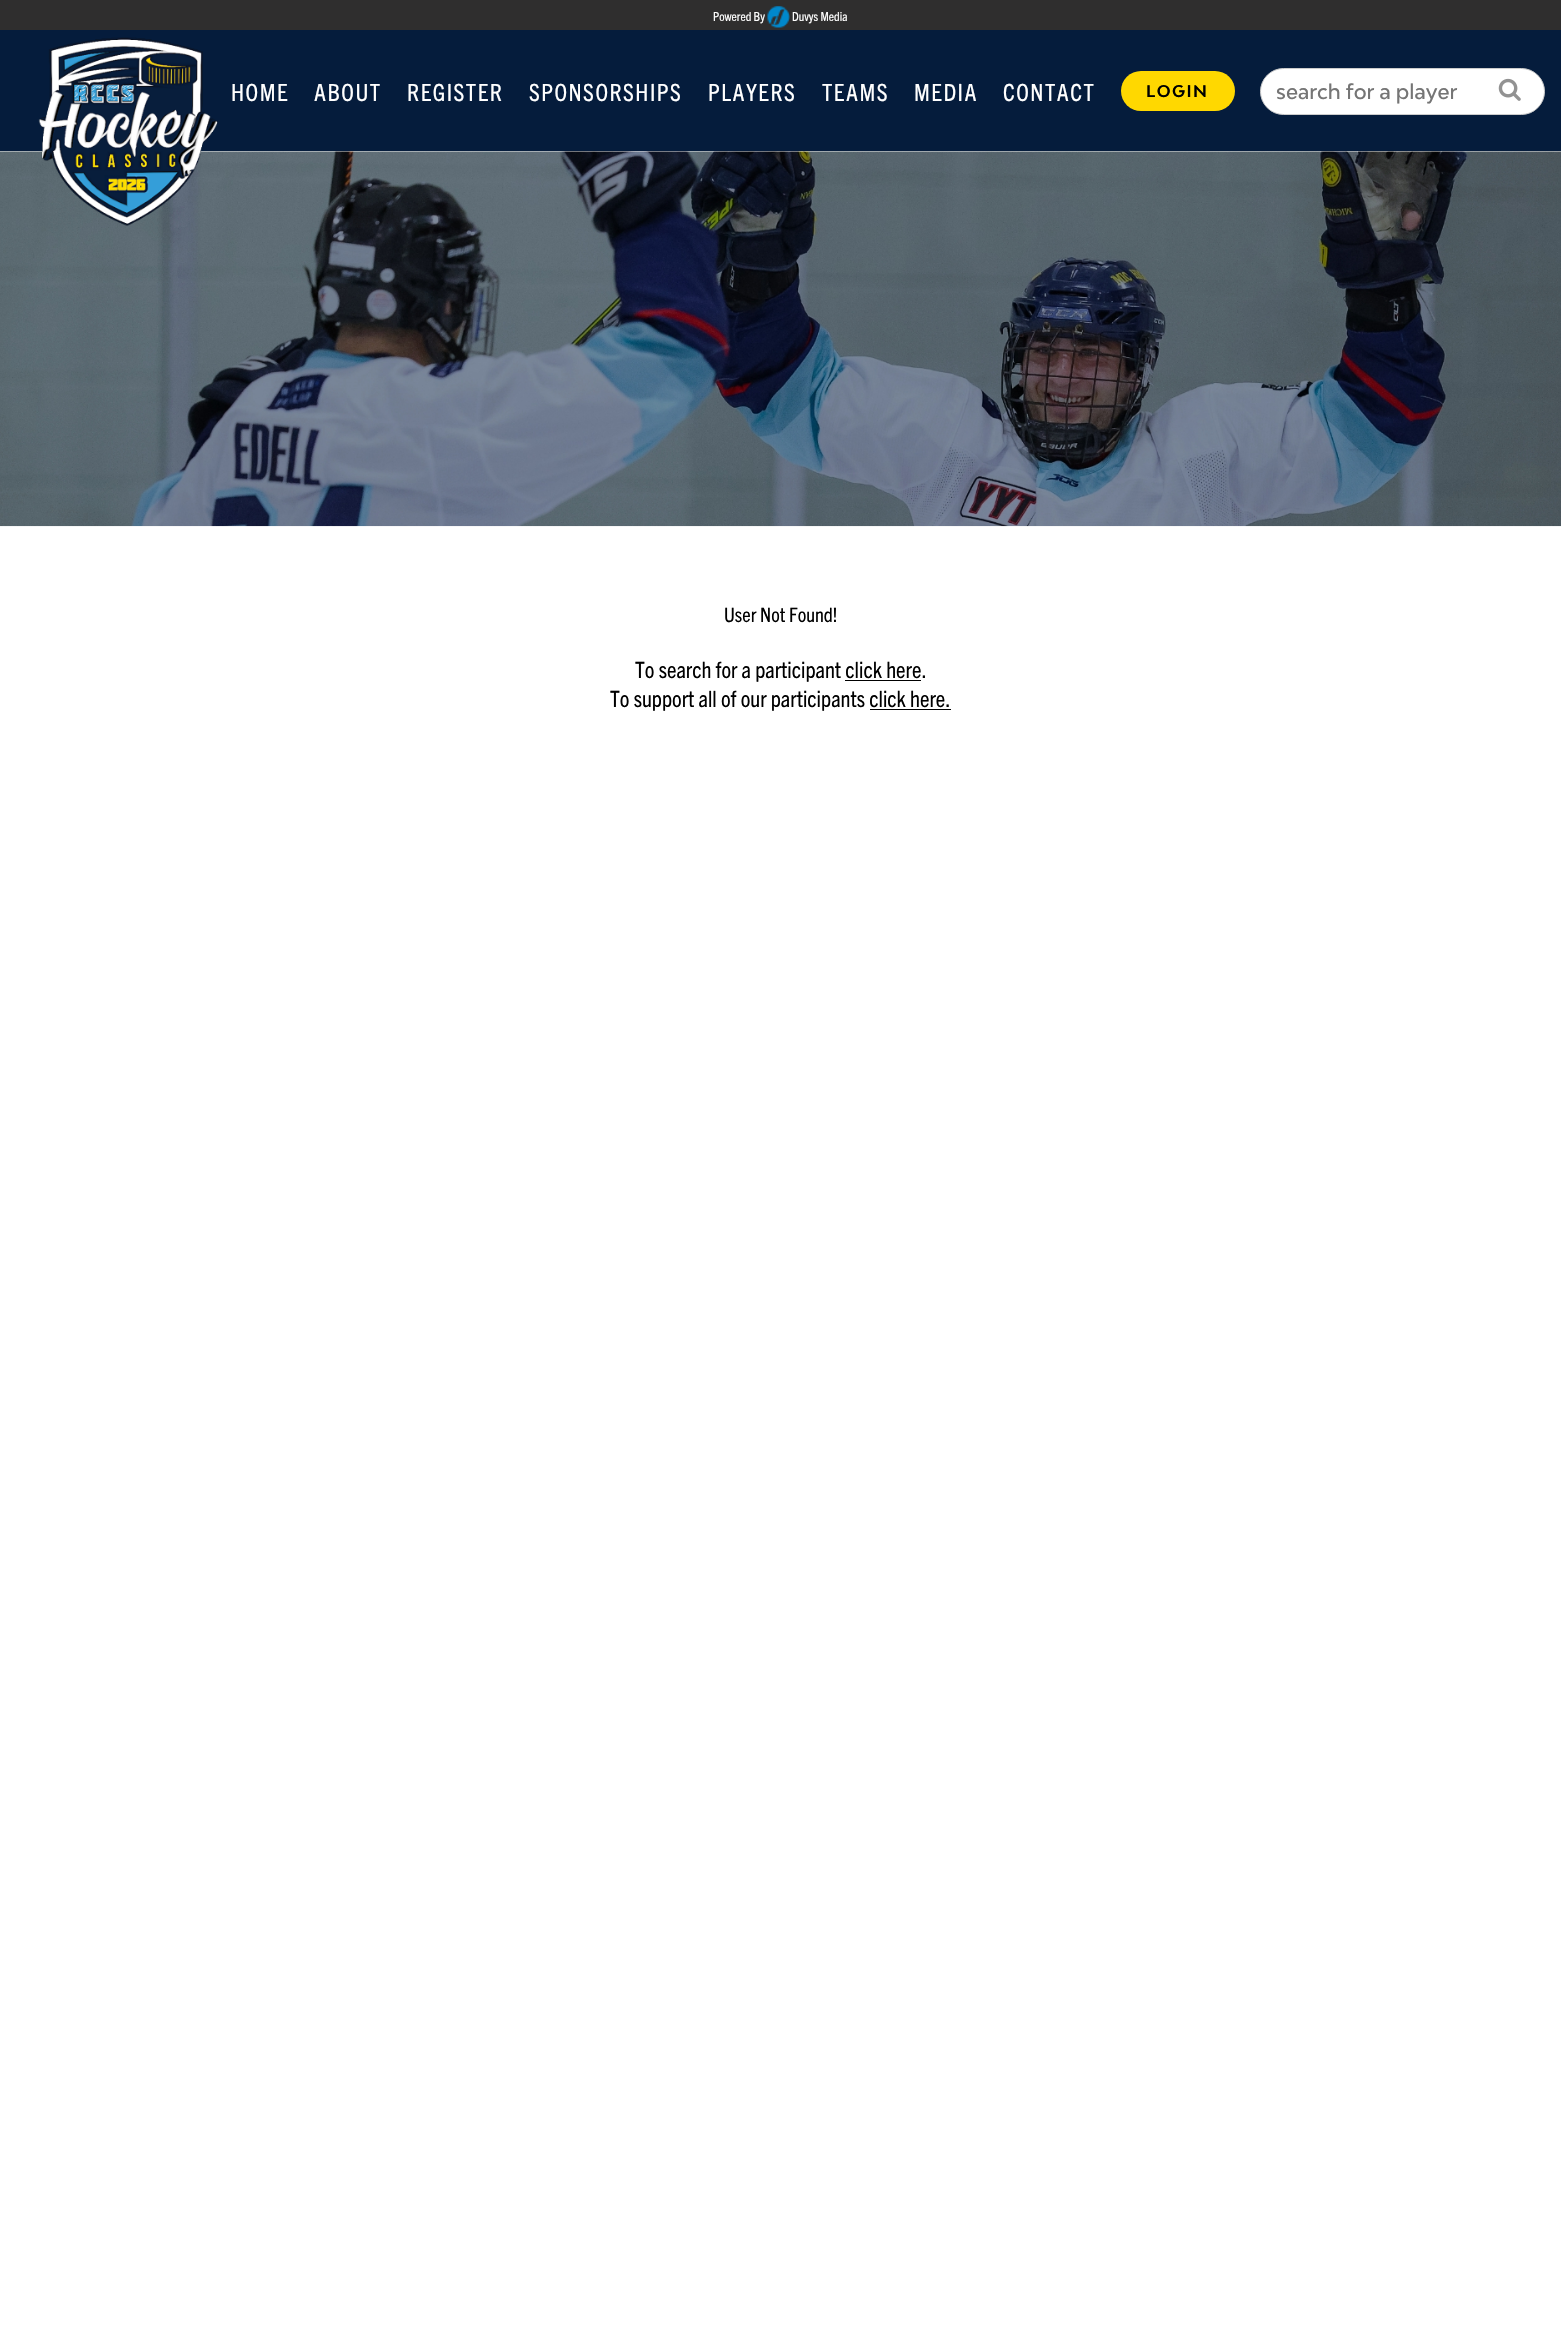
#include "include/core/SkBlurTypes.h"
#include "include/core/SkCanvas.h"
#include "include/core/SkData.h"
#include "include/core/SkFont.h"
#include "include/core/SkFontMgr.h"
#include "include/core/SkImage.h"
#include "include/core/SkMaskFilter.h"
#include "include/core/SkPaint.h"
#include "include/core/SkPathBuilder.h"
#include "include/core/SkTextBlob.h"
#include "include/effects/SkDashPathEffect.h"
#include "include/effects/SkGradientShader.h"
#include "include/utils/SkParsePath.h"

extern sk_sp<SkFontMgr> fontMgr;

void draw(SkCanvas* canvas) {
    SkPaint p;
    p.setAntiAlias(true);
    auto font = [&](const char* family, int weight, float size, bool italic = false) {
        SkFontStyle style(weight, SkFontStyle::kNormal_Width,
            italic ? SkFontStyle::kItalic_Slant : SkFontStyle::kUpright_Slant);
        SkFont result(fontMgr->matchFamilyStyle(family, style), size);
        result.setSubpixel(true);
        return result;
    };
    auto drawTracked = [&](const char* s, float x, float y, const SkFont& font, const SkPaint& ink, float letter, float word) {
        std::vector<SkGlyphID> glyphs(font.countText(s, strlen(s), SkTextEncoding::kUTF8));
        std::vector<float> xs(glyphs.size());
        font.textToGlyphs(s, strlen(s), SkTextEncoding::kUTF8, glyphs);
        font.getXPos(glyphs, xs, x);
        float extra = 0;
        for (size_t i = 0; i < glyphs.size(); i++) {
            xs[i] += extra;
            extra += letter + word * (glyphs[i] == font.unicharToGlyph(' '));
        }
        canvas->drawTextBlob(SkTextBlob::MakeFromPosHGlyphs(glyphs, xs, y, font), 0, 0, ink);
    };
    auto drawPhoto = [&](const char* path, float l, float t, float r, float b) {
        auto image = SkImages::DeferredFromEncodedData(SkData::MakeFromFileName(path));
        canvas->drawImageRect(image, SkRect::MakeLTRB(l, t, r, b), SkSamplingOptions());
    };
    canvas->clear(0xFFFFFFFF);
    p.setColor(0xFF2F2E2E);
    canvas->drawRect(SkRect::MakeLTRB(0, 0, 1561, 30), p);
    auto font1 = font("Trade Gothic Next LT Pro", 400, 12.5f);
    p.setColor(0xFFFFFFFF);
    canvas->drawString("Powered By", 713, 21, font1, p);
    drawPhoto("media/1.png", 767, 6, 790, 28);
    canvas->drawString("Duvys Media", 792, 21, font1, p);
    p.setColor(0xFF051C3C);
    canvas->drawRect(SkRect::MakeLTRB(0, 30, 1561, 151), p);
    drawPhoto("media/4.png", 0, 151, 1561, 527);
    drawPhoto("media/2.png", 38, 37, 218, 226);
    auto font2 = font("Trade Gothic Next LT Pro", 400, 23.75f);
    p.setColor(0xFFFFFFFF);
    {
        const struct { const char* s; float x, y; } items[] = {
            {"HOME", 231, 101},
            {"ABOUT", 314, 101},
            {"REGISTER", 407, 101},
            {"SPONSORSHIPS", 529, 101},
            {"PLAYERS", 708, 101},
            {"TEAMS", 822, 101},
            {"MEDIA", 914, 101},
            {"CONTACT", 1003, 101},
        };
        for (auto [s, x, y] : items) {
            drawTracked(s, x, y, font2, p, 1.5f, 0);
        }
    }
    p.setColor(0xFFFFD800);
    canvas->drawRoundRect(SkRect::MakeLTRB(1121, 71, 1235, 111), 20, 20, p);
    auto font3 = font("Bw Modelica", 700, 16);
    p.setColor(0xFF000000);
    drawTracked("LOGIN", 1146, 97, font3, p, 1.5f, 0);
    p.setColor(0xFFFFFFFF);
    canvas->drawRoundRect(SkRect::MakeLTRB(1260.5f, 68.5f, 1544.5f, 114.5f), 23, 23, p);
    p.setStyle(SkPaint::kStroke_Style);
    p.setStrokeWidth(1);
    p.setColor(0xFFCCCCCC);
    canvas->drawRoundRect(SkRect::MakeLTRB(1260.5f, 68.5f, 1544.5f, 114.5f), 23, 23, p);
    auto font4 = font("Bw Modelica", 500, 20);
    p.setStyle(SkPaint::kFill_Style);
    p.setColor(0xFF757575);
    canvas->drawString("search for a player", 1276, 99, font4, p);
    drawPhoto("media/3.png", 1498, 78, 1521, 101);
    auto font5 = font("Trade Gothic Next LT Pro", 400, 20);
    p.setColor(0xFF000000);
    canvas->drawString("User Not Found!", 724, 622, font5, p);
    auto font6 = font("Trade Gothic Next LT Pro", 400, 22.5f);
    canvas->drawString("To search for a participant click here.", 635, 678, font6, p);
    canvas->drawRect(SkRect::MakeLTRB(845, 680, 921, 681), p);
    canvas->drawString("To support all of our participants click here.", 610, 707, font6, p);
    canvas->drawRect(SkRect::MakeLTRB(870, 709, 951, 710), p);
}
